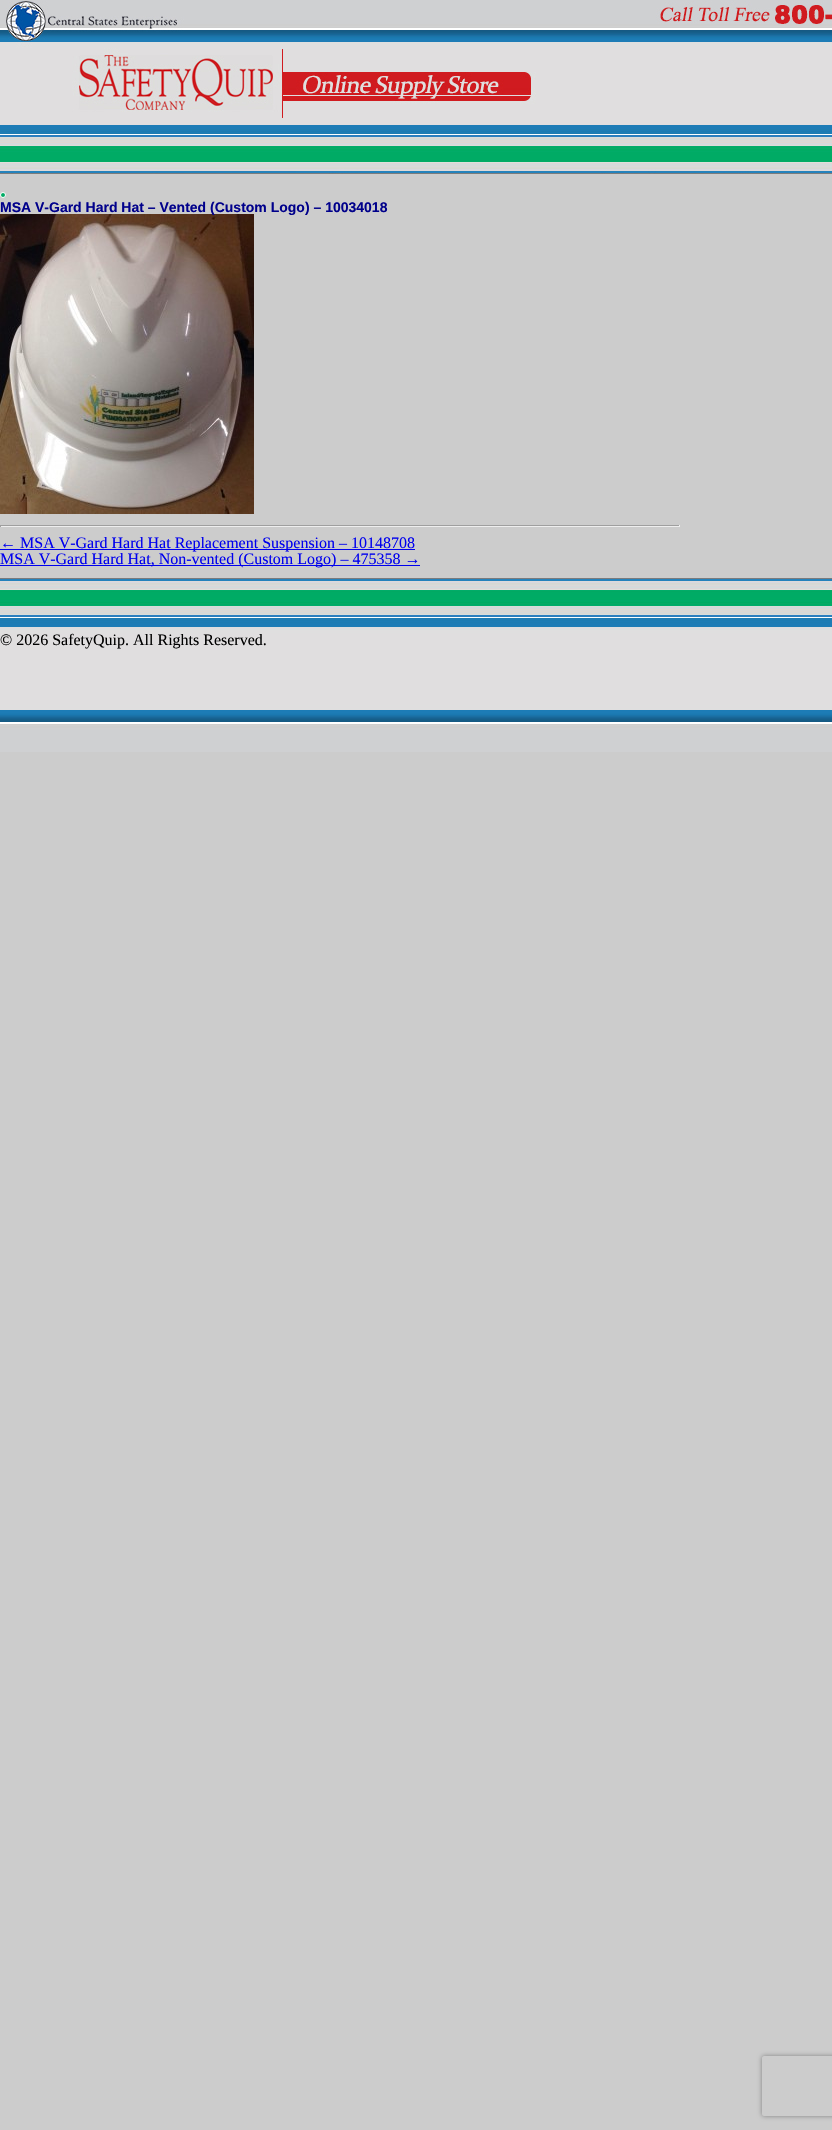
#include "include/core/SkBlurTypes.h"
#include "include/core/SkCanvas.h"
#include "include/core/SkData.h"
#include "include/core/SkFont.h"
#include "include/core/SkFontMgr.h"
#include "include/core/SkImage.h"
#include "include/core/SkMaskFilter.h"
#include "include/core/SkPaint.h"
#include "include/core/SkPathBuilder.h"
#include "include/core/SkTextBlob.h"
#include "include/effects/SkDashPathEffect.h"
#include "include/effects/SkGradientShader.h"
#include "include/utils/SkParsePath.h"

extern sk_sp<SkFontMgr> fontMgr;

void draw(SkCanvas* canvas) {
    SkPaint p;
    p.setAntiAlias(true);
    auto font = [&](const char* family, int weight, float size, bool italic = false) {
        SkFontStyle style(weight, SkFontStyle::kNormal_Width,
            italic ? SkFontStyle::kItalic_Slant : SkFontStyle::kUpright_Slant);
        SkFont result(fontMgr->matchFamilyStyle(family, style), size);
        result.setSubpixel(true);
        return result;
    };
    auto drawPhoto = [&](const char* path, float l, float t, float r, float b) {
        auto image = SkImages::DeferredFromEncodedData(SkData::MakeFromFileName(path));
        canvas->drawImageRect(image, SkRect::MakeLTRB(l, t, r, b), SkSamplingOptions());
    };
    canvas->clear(0xFFCCCCCC);
    drawPhoto("media/1.png", 0, 0, 832, 174);
    drawPhoto("media/2.png", 6, 1, 832, 174);
    p.setColor(0xFF00AB65);
    canvas->drawCircle(3, 195, 2.5f, p);
    p.setStyle(SkPaint::kStroke_Style);
    p.setStrokeWidth(1);
    p.setColor(0xFFFFFFFF);
    canvas->drawCircle(3, 195, 2.5f, p);
    drawPhoto("media/3.png", 0, 214, 254, 514);
    auto font1 = font("Liberation Sans", 700, 14);
    p.setStyle(SkPaint::kFill_Style);
    p.setColor(0xFF00008B);
    canvas->drawString("MSA V-Gard Hard Hat – Vented (Custom Logo) – 10034018", 0, 212, font1, p);
    {
        const struct { float l, t, r, b; SkColor color; } items[] = {
            {0, 525, 680, 526, 0xFF9F9F9F},
            {679, 525, 680, 527, 0xFFEEEEEE},
            {0, 526, 680, 527, 0xFFEEEEEE},
            {0, 525, 1, 527, 0xFF9F9F9F},
            {0, 549, 415, 550, 0xFF0000EE},
        };
        for (auto [l, t, r, b, color] : items) {
            p.setColor(color);
            canvas->drawRect(SkRect::MakeLTRB(l, t, r, b), p);
        }
    }
    auto font2 = font("Liberation Serif", 400, 16);
    canvas->drawString("← MSA V-Gard Hard Hat Replacement Suspension – 10148708", 0, 548, font2, p);
    canvas->drawRect(SkRect::MakeLTRB(0, 565, 420, 566), p);
    canvas->drawString("MSA V-Gard Hard Hat, Non-vented (Custom Logo) – 475358 →", 0, 564, font2, p);
    drawPhoto("media/4.png", 0, 578, 832, 752);
    p.setColor(0xFF000000);
    canvas->drawString("© 2026 SafetyQuip. All Rights Reserved.", 0, 645, font2, p);
    canvas->save();
    canvas->clipPath(SkPathBuilder(SkPathFillType::kEvenOdd).moveTo(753, 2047).lineTo(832, 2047).lineTo(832, 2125).lineTo(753, 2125).close().moveTo(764, 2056).lineTo(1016, 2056).cubicTo(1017, 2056, 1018, 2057, 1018, 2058).lineTo(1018, 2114).cubicTo(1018, 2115, 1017, 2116, 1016, 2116).lineTo(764, 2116).cubicTo(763, 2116, 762, 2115, 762, 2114).lineTo(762, 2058).cubicTo(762, 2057, 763, 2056, 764, 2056).close().detach(), true);
    p.setColor(0xFF808080);
    p.setMaskFilter(SkMaskFilter::MakeBlur(kNormal_SkBlurStyle, 2.5f));
    canvas->drawRoundRect(SkRect::MakeLTRB(762, 2056, 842, 2116), 2, 2, p);
    p.setMaskFilter(nullptr);
    canvas->restore();
}
